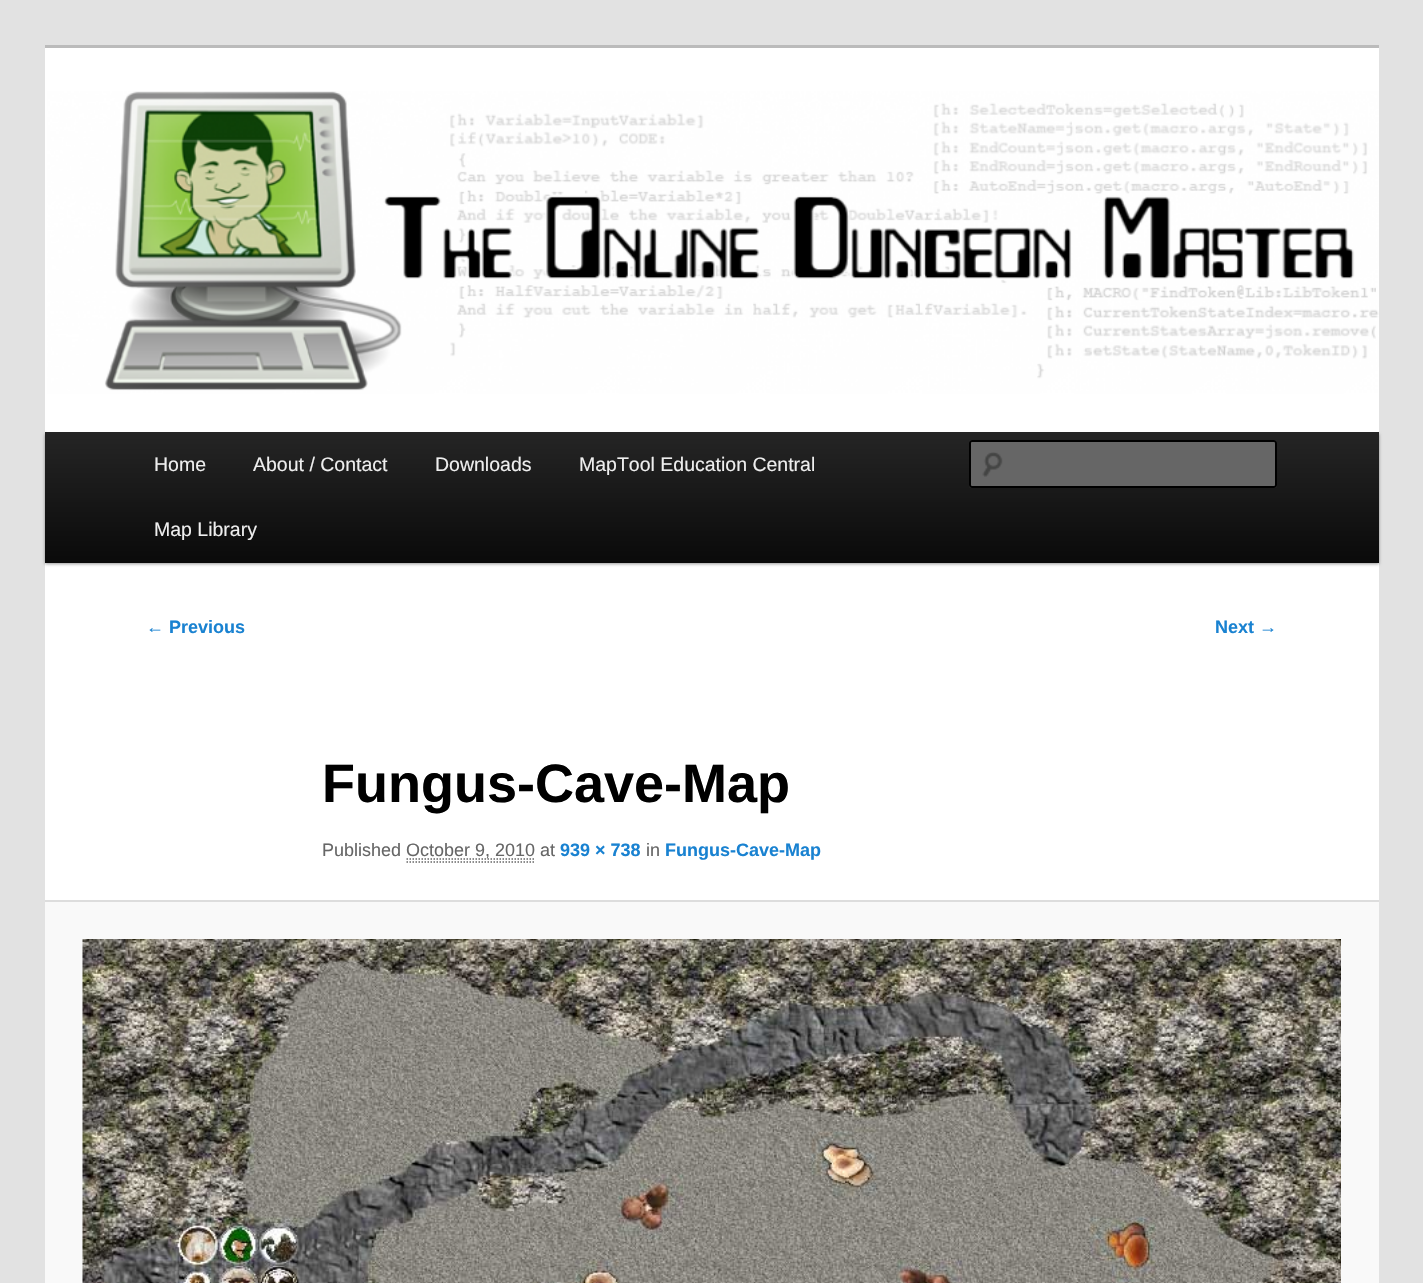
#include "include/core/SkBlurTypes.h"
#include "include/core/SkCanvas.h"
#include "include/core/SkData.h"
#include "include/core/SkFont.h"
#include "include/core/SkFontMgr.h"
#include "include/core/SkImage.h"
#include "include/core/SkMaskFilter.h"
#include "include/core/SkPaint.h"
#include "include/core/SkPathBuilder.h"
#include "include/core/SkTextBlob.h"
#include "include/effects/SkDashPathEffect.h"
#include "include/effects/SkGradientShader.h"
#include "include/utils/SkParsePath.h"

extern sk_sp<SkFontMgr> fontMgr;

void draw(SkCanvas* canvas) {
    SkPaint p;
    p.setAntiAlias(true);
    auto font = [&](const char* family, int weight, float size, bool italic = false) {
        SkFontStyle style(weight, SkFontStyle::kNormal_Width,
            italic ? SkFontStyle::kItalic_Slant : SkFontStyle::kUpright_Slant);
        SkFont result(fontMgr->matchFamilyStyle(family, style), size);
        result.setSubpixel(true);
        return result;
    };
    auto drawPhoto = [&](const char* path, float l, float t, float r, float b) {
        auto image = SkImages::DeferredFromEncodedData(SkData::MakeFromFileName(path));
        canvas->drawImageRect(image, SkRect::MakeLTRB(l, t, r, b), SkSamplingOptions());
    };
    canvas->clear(0xFFE2E2E2);
    p.setColor(0xFFFFFFFF);
    canvas->drawRect(SkRect::MakeLTRB(45, 48, 1379, 900), p);
    p.setColor(0xFFBBBBBB);
    canvas->drawRect(SkRect::MakeLTRB(45, 45, 1379, 48), p);
    p.setColor(0x66000000);
    p.setMaskFilter(SkMaskFilter::MakeBlur(kNormal_SkBlurStyle, 1.5f));
    canvas->drawRect(SkRect::MakeLTRB(45, 434, 1379, 564), p);
    p.setMaskFilter(nullptr);
    drawPhoto("media/1.png", 47, 91, 1379, 432);
    {
        const SkColor colors[] = {0xFF252525, 0xFF0A0A0A};
        const float stops[] = {0, 1};
        const SkPoint ends[] = {{712, 432}, {712, 563}};
        p.setShader(SkGradientShader::MakeLinear(ends, colors, stops, 2, SkTileMode::kClamp));
        p.setAlpha(255);
    }
    canvas->drawRect(SkRect::MakeLTRB(45, 432, 1379, 563), p);
    auto font1 = font("Liberation Sans", 400, 19.5f);
    p.setShader(nullptr);
    p.setColor(0xFFEEEEEE);
    {
        const struct { const char* s; float x, y; } items[] = {
            {"Home", 154, 471},
            {"About / Contact", 253, 471},
            {"Downloads", 435, 471},
            {"MapTool Education Central", 579, 471},
            {"Map Library", 154, 536},
        };
        for (auto [s, x, y] : items) {
            canvas->drawString(s, x, y, font1, p);
        }
    }
    p.setColor(0xFF666666);
    canvas->drawRoundRect(SkRect::MakeLTRB(969, 440, 1277, 488), 3, 3, p);
    drawPhoto("media/2.png", 982, 452, 1003, 477);
    p.setColor(0xFF5C5C5C);
    canvas->drawPath(SkPathBuilder().moveTo(972, 442).lineTo(1274, 442).lineTo(1275, 444).lineTo(1275, 442).lineTo(1274, 441).lineTo(972, 441).cubicTo(972, 441, 971, 442, 971, 442).close().detach(), p);
    p.setStyle(SkPaint::kStroke_Style);
    p.setStrokeWidth(2);
    p.setColor(0xFF000000);
    canvas->drawRoundRect(SkRect::MakeLTRB(970, 441, 1276, 487), 2, 2, p);
    auto font2 = font("Liberation Sans", 700, 18);
    p.setStyle(SkPaint::kFill_Style);
    p.setColor(0xFF1982D1);
    canvas->drawString("← Previous", 146, 633, font2, p);
    canvas->drawString("Next →", 1215, 633, font2, p);
    auto font3 = font("Liberation Sans", 700, 54);
    p.setColor(0xFF000000);
    canvas->drawString("Fungus-Cave-Map", 322, 802, font3, p);
    auto font4 = font("Liberation Sans", 400, 18);
    p.setColor(0xFF666666);
    canvas->drawString("Published", 322, 856, font4, p);
    p.setStyle(SkPaint::kStroke_Style);
    p.setStrokeWidth(1.5f);
    p.setPathEffect(SkDashPathEffect::Make({{1.5f, 1.5f}}, 0));
    canvas->drawPath(SkPathBuilder().moveTo(406.5f, 859).lineTo(535.5f, 859).detach(), p);
    p.setPathEffect(nullptr);
    p.setStyle(SkPaint::kFill_Style);
    canvas->drawString("October 9, 2010 at", 406, 856, font4, p);
    p.setStyle(SkPaint::kStroke_Style);
    p.setPathEffect(SkDashPathEffect::Make({{1.5f, 1.5f}}, 0));
    canvas->drawPath(SkPathBuilder().moveTo(406.5f, 862).lineTo(535.5f, 862).detach(), p);
    p.setPathEffect(nullptr);
    p.setStyle(SkPaint::kFill_Style);
    p.setColor(0xFF1982D1);
    canvas->drawString("939 × 738", 560, 856, font2, p);
    p.setColor(0xFF666666);
    canvas->drawString("in", 646, 856, font4, p);
    p.setColor(0xFF1982D1);
    canvas->drawString("Fungus-Cave-Map", 665, 856, font2, p);
    p.setColor(0xFFF9F9F9);
    canvas->drawRect(SkRect::MakeLTRB(45, 902, 1379, 1283), p);
    p.setColor(0xFFDDDDDD);
    canvas->drawRect(SkRect::MakeLTRB(45, 900, 1379, 902), p);
    drawPhoto("media/3.png", 82, 939, 1341, 1283);
}
